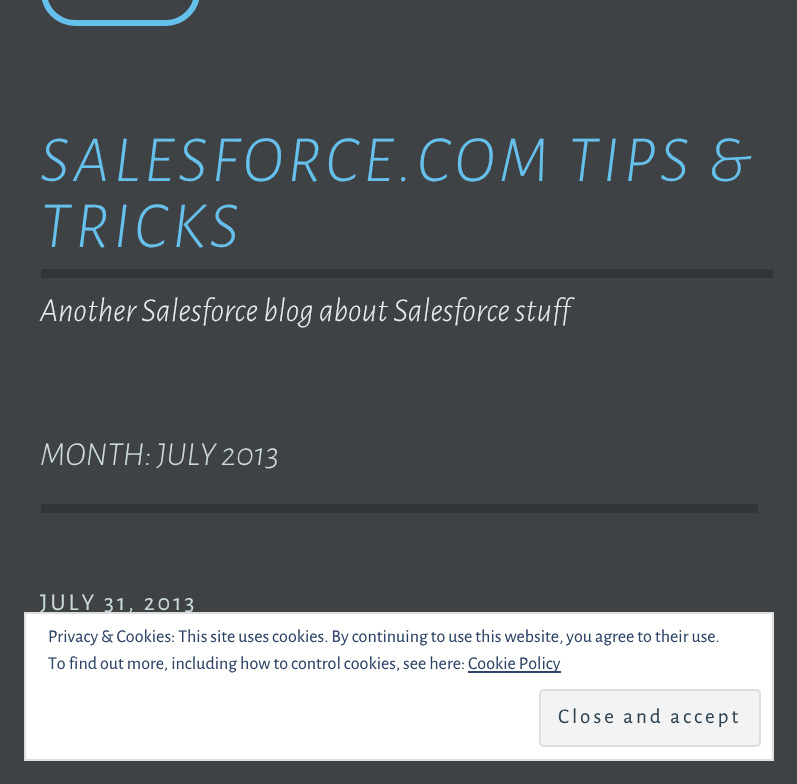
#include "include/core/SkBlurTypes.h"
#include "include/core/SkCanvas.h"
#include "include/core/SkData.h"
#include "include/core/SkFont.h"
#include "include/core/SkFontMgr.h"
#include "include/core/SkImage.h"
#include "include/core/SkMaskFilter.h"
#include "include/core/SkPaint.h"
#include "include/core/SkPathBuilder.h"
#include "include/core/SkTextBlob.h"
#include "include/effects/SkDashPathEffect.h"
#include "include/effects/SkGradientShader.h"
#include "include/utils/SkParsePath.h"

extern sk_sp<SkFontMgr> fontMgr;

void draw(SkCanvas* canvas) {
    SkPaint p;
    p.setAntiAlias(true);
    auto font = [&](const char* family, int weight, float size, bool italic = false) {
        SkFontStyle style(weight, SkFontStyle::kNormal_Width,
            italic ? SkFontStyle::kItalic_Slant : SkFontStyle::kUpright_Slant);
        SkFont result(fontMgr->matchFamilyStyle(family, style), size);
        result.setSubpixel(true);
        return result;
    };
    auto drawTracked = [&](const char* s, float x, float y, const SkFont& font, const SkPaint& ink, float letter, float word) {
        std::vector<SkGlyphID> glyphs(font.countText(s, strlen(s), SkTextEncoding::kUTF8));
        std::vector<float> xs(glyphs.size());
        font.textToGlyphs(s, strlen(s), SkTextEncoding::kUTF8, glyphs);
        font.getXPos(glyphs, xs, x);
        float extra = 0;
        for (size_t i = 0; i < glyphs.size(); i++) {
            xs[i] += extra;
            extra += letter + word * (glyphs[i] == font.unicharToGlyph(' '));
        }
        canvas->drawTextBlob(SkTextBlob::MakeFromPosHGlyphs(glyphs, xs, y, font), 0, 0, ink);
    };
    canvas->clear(0xFF3E4244);
    p.setStyle(SkPaint::kStroke_Style);
    p.setStrokeWidth(6);
    p.setColor(0xFF66C0EC);
    canvas->drawRoundRect(SkRect::MakeLTRB(44, -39, 197, 23), 33, 33, p);
    auto font1 = font("Alegreya Sans", 300, 66.2f, true);
    p.setStyle(SkPaint::kFill_Style);
    drawTracked("SALESFORCE.COM TIPS &", 40, 181, font1, p, 4.5f, 0);
    drawTracked("TRICKS", 40, 247, font1, p, 4.5f, 0);
    p.setColor(0xFF313537);
    canvas->drawRect(SkRect::MakeLTRB(41, 269, 773, 278), p);
    auto font2 = font("Alegreya Sans", 300, 33.6f, true);
    p.setColor(0xFFE6EDF0);
    canvas->drawString("Another Salesforce blog about Salesforce stuff", 40, 321, font2, p);
    p.setColor(0xFFCAD9D9);
    canvas->drawString("MONTH: JULY 2013", 40, 465, font2, p);
    p.setColor(0xFF313537);
    canvas->drawRect(SkRect::MakeLTRB(41, 504, 758, 513), p);
    auto font3 = font("Alegreya Sans", 400, 24);
    p.setColor(0xFFCAD9D9);
    drawTracked("JULY 31, 2013", 40, 610, font3, p, 3, 0);
    p.setColor(0xFFFFFFFF);
    canvas->drawRect(SkRect::MakeLTRB(25, 613, 773, 760), p);
    p.setStyle(SkPaint::kStroke_Style);
    p.setStrokeWidth(2);
    p.setColor(0xFFDEDEDE);
    canvas->drawRect(SkRect::MakeLTRB(25, 613, 773, 760), p);
    auto font4 = font("Alegreya Sans", 400, 18);
    p.setStyle(SkPaint::kFill_Style);
    p.setColor(0xFF2E4467);
    canvas->drawString("Privacy & Cookies: This site uses cookies. By continuing to use this website, you agree to their use.", 48, 642, font4, p);
    canvas->drawString("To find out more, including how to control cookies, see here:", 48, 669, font4, p);
    canvas->drawRect(SkRect::MakeLTRB(468, 671, 561, 673), p);
    canvas->drawString("Cookie Policy", 468, 669, font4, p);
    p.setColor(0xFFF3F3F3);
    canvas->drawRoundRect(SkRect::MakeLTRB(540, 690, 760, 746), 4, 4, p);
    p.setStyle(SkPaint::kStroke_Style);
    p.setColor(0xFFDEDEDE);
    canvas->drawRoundRect(SkRect::MakeLTRB(540, 690, 760, 746), 4, 4, p);
    auto font5 = font("Alegreya Sans", 400, 21);
    p.setStyle(SkPaint::kFill_Style);
    p.setColor(0xFF2E4453);
    drawTracked("Close and accept", 558, 723, font5, p, 3, 0);
}
